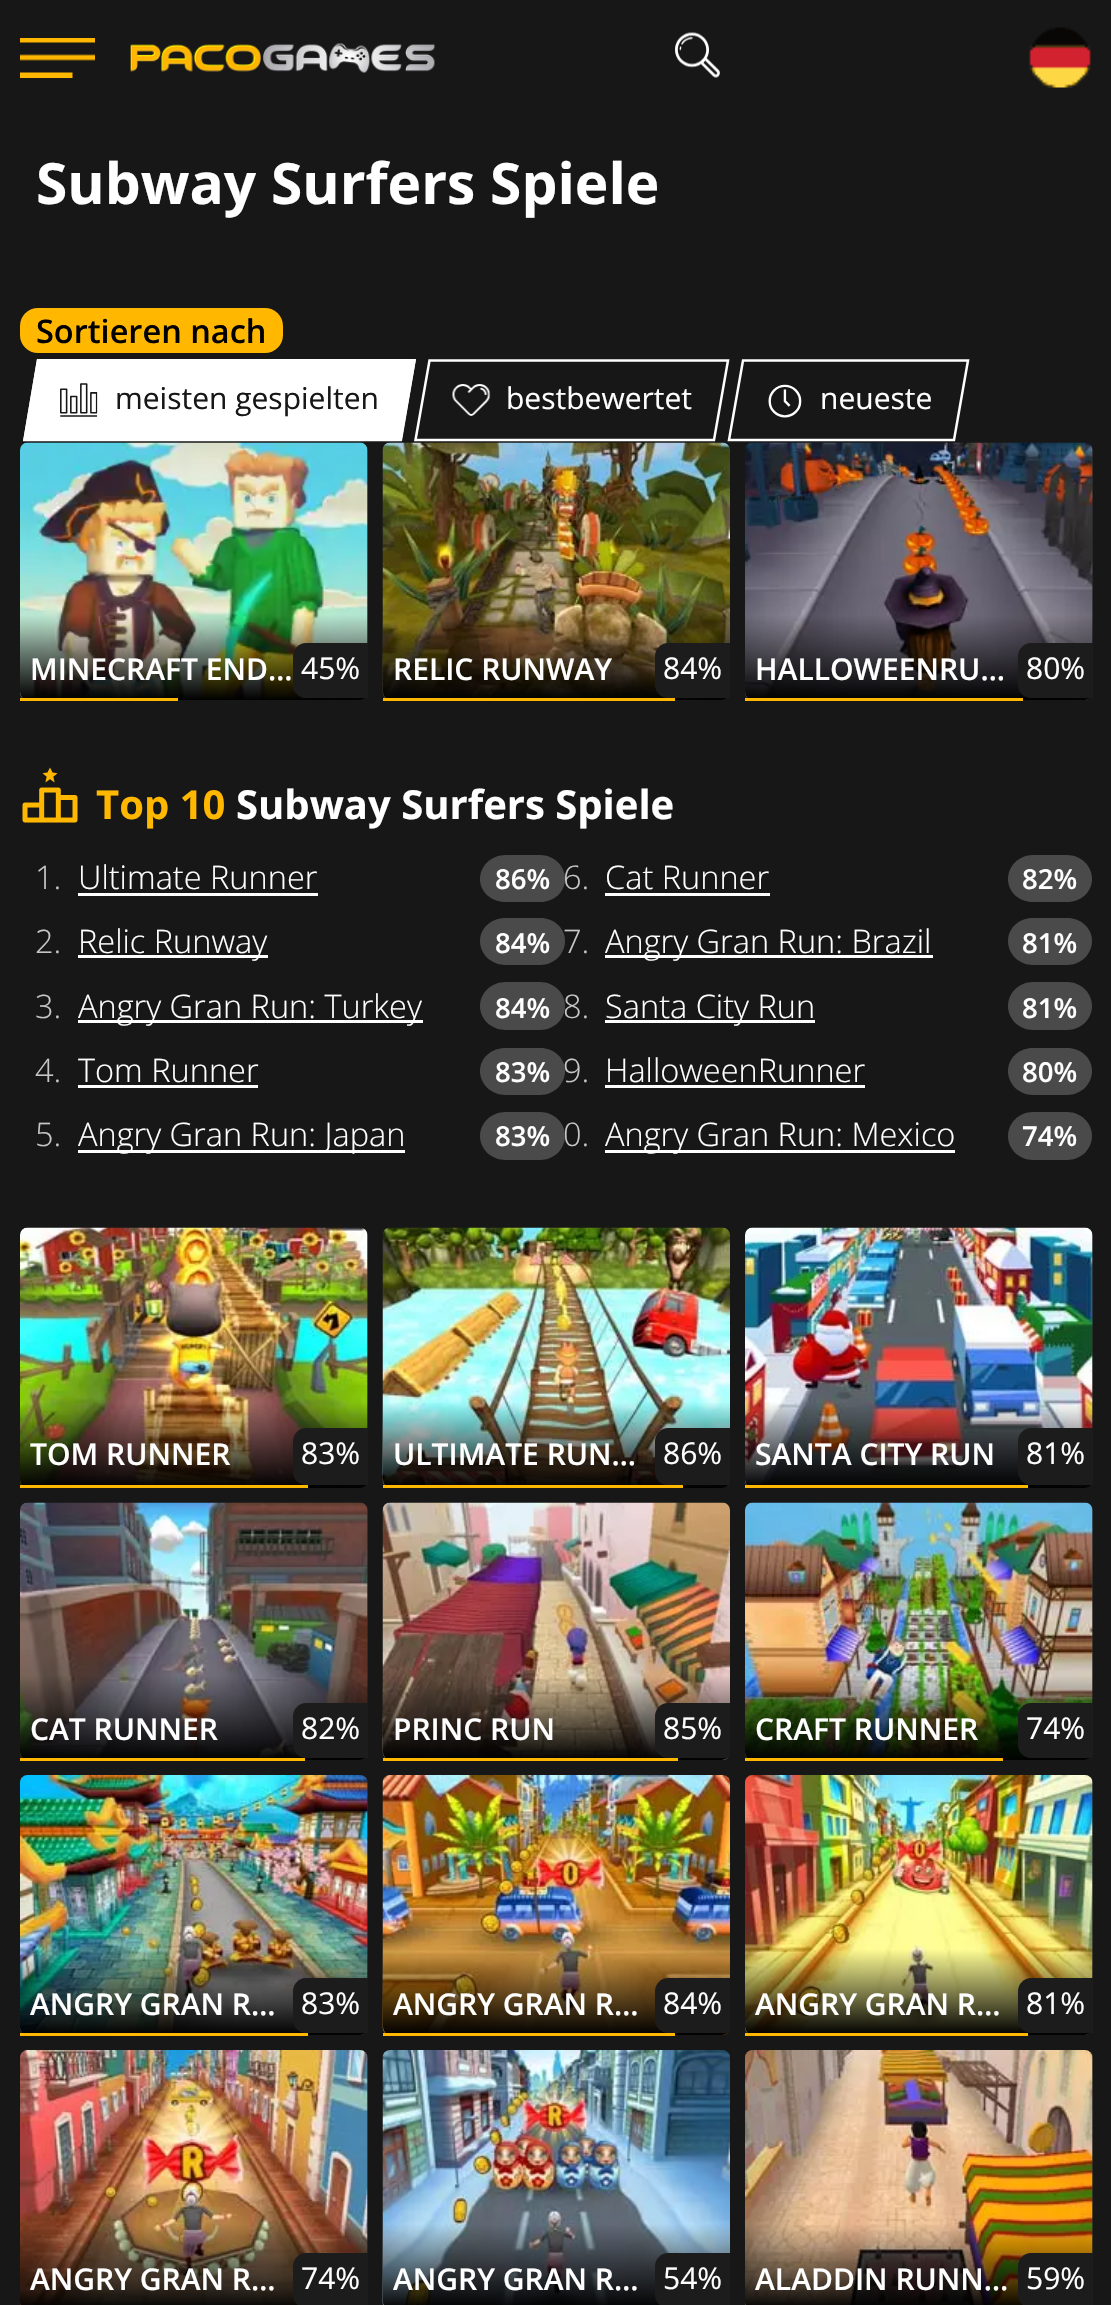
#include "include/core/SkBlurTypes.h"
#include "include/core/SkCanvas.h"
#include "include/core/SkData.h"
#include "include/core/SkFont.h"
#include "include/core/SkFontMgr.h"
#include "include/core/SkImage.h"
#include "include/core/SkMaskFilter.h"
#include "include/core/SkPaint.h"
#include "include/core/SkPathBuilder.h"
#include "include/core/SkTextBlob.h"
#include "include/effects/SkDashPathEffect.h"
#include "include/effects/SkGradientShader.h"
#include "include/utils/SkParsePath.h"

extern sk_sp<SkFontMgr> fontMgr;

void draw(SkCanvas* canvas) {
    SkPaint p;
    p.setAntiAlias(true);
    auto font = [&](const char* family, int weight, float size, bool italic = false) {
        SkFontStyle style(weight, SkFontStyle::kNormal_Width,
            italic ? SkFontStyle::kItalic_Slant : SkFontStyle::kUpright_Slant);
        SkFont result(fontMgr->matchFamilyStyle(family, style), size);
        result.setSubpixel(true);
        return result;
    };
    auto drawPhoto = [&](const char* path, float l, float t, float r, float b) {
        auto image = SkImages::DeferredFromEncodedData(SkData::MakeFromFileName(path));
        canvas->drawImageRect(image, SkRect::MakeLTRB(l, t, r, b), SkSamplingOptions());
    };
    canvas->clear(0xFF171717);
    drawPhoto("media/1.png", 20, 38, 95, 78);
    drawPhoto("media/2.png", 130, 43, 435, 73);
    drawPhoto("media/3.png", 675, 32, 720, 78);
    drawPhoto("media/4.png", 1029, 27, 1091, 88);
    auto font1 = font("Open Sans", 700, 56.9f);
    p.setColor(0xFFFFFFFF);
    canvas->drawString("Subway Surfers Spiele", 36, 204, font1, p);
    p.setColor(0xFFFFB700);
    canvas->drawRoundRect(SkRect::MakeLTRB(20, 308, 283, 353), 18, 18, p);
    auto font2 = font("Open Sans", 600, 32.5f);
    p.setColor(0xFF000000);
    canvas->drawString("Sortieren nach", 36, 343, font2, p);
    p.setColor(0xFFFFFFFF);
    canvas->drawPath(SkPathBuilder().moveTo(37, 359).lineTo(416, 359).lineTo(402, 441).lineTo(23, 441).close().detach(), p);
    p.setStyle(SkPaint::kStroke_Style);
    p.setStrokeWidth(2.5f);
    canvas->drawPath(SkPathBuilder().moveTo(38, 360.5f).lineTo(414.5f, 360.5f).lineTo(400.5f, 440).lineTo(24.5f, 440).close().detach(), p);
    drawPhoto("media/5.png", 60, 383, 98, 417);
    auto font3 = font("Open Sans", 400, 30);
    p.setStyle(SkPaint::kFill_Style);
    p.setColor(0xFF171717);
    canvas->drawString("meisten gespielten", 115, 409, font3, p);
    p.setStyle(SkPaint::kStroke_Style);
    p.setColor(0xFFFFFFFF);
    canvas->drawPath(SkPathBuilder().moveTo(429.5f, 360.5f).lineTo(728, 360.5f).lineTo(714, 440).lineTo(415.5f, 440).close().detach(), p);
    drawPhoto("media/6.png", 452, 384, 491, 416);
    p.setStyle(SkPaint::kFill_Style);
    canvas->drawString("bestbewertet", 506, 409, font3, p);
    p.setStyle(SkPaint::kStroke_Style);
    canvas->drawPath(SkPathBuilder().moveTo(743, 360.5f).lineTo(968, 360.5f).lineTo(954, 440).lineTo(729, 440).close().detach(), p);
    drawPhoto("media/7.png", 768, 384, 802, 418);
    p.setStyle(SkPaint::kFill_Style);
    canvas->drawString("neueste", 820, 409, font3, p);
    p.setColor(0xFF272727);
    canvas->drawRoundRect(SkRect::MakeLTRB(20, 443, 368, 700), 8, 8, p);
    drawPhoto("media/8.png", 20, 442, 368, 700);
    {
        const SkColor colors[] = {0x00000000, 0xFF000000};
        const float stops[] = {0.67f, 1};
        const SkPoint ends[] = {{194, 443}, {194, 700}};
        p.setShader(SkGradientShader::MakeLinear(ends, colors, stops, 2, SkTileMode::kClamp));
        p.setAlpha(255);
    }
    canvas->drawRoundRect(SkRect::MakeLTRB(20, 443, 368, 700), 8, 8, p);
    auto font4 = font("Open Sans", 600, 30);
    p.setShader(nullptr);
    p.setColor(0xFFFFFFFF);
    canvas->drawString("MINECRAFT END…", 30, 680, font4, p);
    p.setColor(0xFF1C1C1C);
    canvas->drawPath(SkPathBuilder().moveTo(306, 643).lineTo(368, 643).lineTo(368, 698).lineTo(306, 698).cubicTo(299, 698, 293, 692, 293, 685).lineTo(293, 656).cubicTo(293, 649, 299, 643, 306, 643).close().detach(), p);
    p.setColor(0xFFFFFFFF);
    canvas->drawString("45%", 301, 679, font3, p);
    p.setColor(0xFFFFB700);
    canvas->drawRect(SkRect::MakeLTRB(20, 698, 178, 701), p);
    drawPhoto("media/9.png", 382, 442, 730, 700);
    {
        const SkColor colors[] = {0x00000000, 0xFF000000};
        const float stops[] = {0.67f, 1};
        const SkPoint ends[] = {{556, 443}, {556, 700}};
        p.setShader(SkGradientShader::MakeLinear(ends, colors, stops, 2, SkTileMode::kClamp));
        p.setAlpha(255);
    }
    canvas->drawRoundRect(SkRect::MakeLTRB(383, 443, 730, 700), 8, 8, p);
    p.setShader(nullptr);
    p.setColor(0xFFFFFFFF);
    canvas->drawString("RELIC RUNWAY", 393, 680, font4, p);
    p.setColor(0xFF1C1C1C);
    canvas->drawPath(SkPathBuilder().moveTo(668, 643).lineTo(730, 643).lineTo(730, 698).lineTo(668, 698).cubicTo(661, 698, 655, 692, 655, 685).lineTo(655, 656).cubicTo(655, 649, 661, 643, 668, 643).close().detach(), p);
    p.setColor(0xFFFFFFFF);
    canvas->drawString("84%", 663, 679, font3, p);
    p.setColor(0xFFFFB700);
    canvas->drawRect(SkRect::MakeLTRB(383, 698, 675, 701), p);
    p.setColor(0xFF272727);
    canvas->drawRoundRect(SkRect::MakeLTRB(745, 443, 1093, 700), 8, 8, p);
    drawPhoto("media/10.png", 745, 442, 1093, 700);
    {
        const SkColor colors[] = {0x00000000, 0xFF000000};
        const float stops[] = {0.67f, 1};
        const SkPoint ends[] = {{919, 443}, {919, 700}};
        p.setShader(SkGradientShader::MakeLinear(ends, colors, stops, 2, SkTileMode::kClamp));
        p.setAlpha(255);
    }
    canvas->drawRoundRect(SkRect::MakeLTRB(745, 443, 1093, 700), 8, 8, p);
    p.setShader(nullptr);
    p.setColor(0xFFFFFFFF);
    canvas->drawString("HALLOWEENRU…", 755, 680, font4, p);
    p.setColor(0xFF1C1C1C);
    canvas->drawPath(SkPathBuilder().moveTo(1031, 643).lineTo(1093, 643).lineTo(1093, 698).lineTo(1031, 698).cubicTo(1024, 698, 1018, 692, 1018, 685).lineTo(1018, 656).cubicTo(1018, 649, 1024, 643, 1031, 643).close().detach(), p);
    p.setColor(0xFFFFFFFF);
    canvas->drawString("80%", 1026, 679, font3, p);
    p.setColor(0xFFFFB700);
    canvas->drawRect(SkRect::MakeLTRB(745, 698, 1023, 701), p);
    drawPhoto("media/11.png", 22, 767, 78, 823);
    auto font5 = font("Open Sans", 700, 40);
    canvas->drawString("Top 10", 96, 819, font5, p);
    p.setColor(0xFFFFFFFF);
    canvas->drawString("Subway Surfers Spiele", 236, 819, font5, p);
    auto font6 = font("Open Sans", 300, 32.5f);
    p.setColor(0xFFC7C7C7);
    canvas->drawString("1.", 35, 889, font6, p);
    p.setColor(0xFFFFFFFF);
    canvas->drawString("Ultimate Runner", 78, 889, font6, p);
    canvas->drawRect(SkRect::MakeLTRB(78, 893, 318, 896), p);
    p.setColor(0xFFC7C7C7);
    canvas->drawString("6.", 563, 889, font6, p);
    p.setColor(0xFF4A4A4A);
    canvas->drawPath(SkPathBuilder().moveTo(506, 855).lineTo(540, 855).cubicTo(554, 855, 565, 866, 565, 879).cubicTo(565, 892, 554, 902, 540, 902).lineTo(506, 902).cubicTo(491, 902, 480, 892, 480, 879).cubicTo(480, 866, 491, 855, 506, 855).close().detach(), p);
    auto font7 = font("Open Sans", 600, 27.5f);
    p.setColor(0xFFFFFFFF);
    canvas->drawString("86%", 495, 889, font7, p);
    canvas->drawString("Cat Runner", 605, 889, font6, p);
    canvas->drawRect(SkRect::MakeLTRB(605, 893, 770, 896), p);
    p.setColor(0xFF4A4A4A);
    canvas->drawPath(SkPathBuilder().moveTo(1033, 855).lineTo(1067, 855).cubicTo(1081, 855, 1092, 866, 1092, 879).cubicTo(1092, 892, 1081, 902, 1067, 902).lineTo(1033, 902).cubicTo(1019, 902, 1008, 892, 1008, 879).cubicTo(1008, 866, 1019, 855, 1033, 855).close().detach(), p);
    p.setColor(0xFFFFFFFF);
    canvas->drawString("82%", 1022, 889, font7, p);
    p.setColor(0xFFC7C7C7);
    canvas->drawString("2.", 35, 953, font6, p);
    p.setColor(0xFFFFFFFF);
    canvas->drawRect(SkRect::MakeLTRB(78, 955, 268, 958), p);
    canvas->drawString("Relic Runway", 78, 953, font6, p);
    p.setColor(0xFFC7C7C7);
    canvas->drawString("7.", 563, 953, font6, p);
    p.setColor(0xFF4A4A4A);
    canvas->drawPath(SkPathBuilder().moveTo(506, 918).lineTo(540, 918).cubicTo(554, 918, 565, 928, 565, 941).cubicTo(565, 954, 554, 965, 540, 965).lineTo(506, 965).cubicTo(491, 965, 480, 954, 480, 941).cubicTo(480, 928, 491, 918, 506, 918).close().detach(), p);
    p.setColor(0xFFFFFFFF);
    canvas->drawString("84%", 495, 953, font7, p);
    canvas->drawRect(SkRect::MakeLTRB(605, 955, 933, 958), p);
    canvas->drawString("Angry Gran Run: Brazil", 605, 953, font6, p);
    p.setColor(0xFF4A4A4A);
    canvas->drawPath(SkPathBuilder().moveTo(1033, 918).lineTo(1067, 918).cubicTo(1081, 918, 1092, 928, 1092, 941).cubicTo(1092, 954, 1081, 965, 1067, 965).lineTo(1033, 965).cubicTo(1019, 965, 1008, 954, 1008, 941).cubicTo(1008, 928, 1019, 918, 1033, 918).close().detach(), p);
    p.setColor(0xFFFFFFFF);
    canvas->drawString("81%", 1022, 953, font7, p);
    p.setColor(0xFFC7C7C7);
    canvas->drawString("3.", 35, 1018, font6, p);
    p.setColor(0xFFFFFFFF);
    canvas->drawRect(SkRect::MakeLTRB(78, 1020, 423, 1023), p);
    canvas->drawString("Angry Gran Run: Turkey", 78, 1018, font6, p);
    p.setColor(0xFFC7C7C7);
    canvas->drawString("8.", 563, 1018, font6, p);
    p.setColor(0xFF4A4A4A);
    canvas->drawPath(SkPathBuilder().moveTo(506, 982).lineTo(540, 982).cubicTo(554, 982, 565, 993, 565, 1006).cubicTo(565, 1019, 554, 1030, 540, 1030).lineTo(506, 1030).cubicTo(491, 1030, 480, 1019, 480, 1006).cubicTo(480, 993, 491, 982, 506, 982).close().detach(), p);
    p.setColor(0xFFFFFFFF);
    canvas->drawString("84%", 495, 1018, font7, p);
    canvas->drawRect(SkRect::MakeLTRB(605, 1020, 815, 1023), p);
    canvas->drawString("Santa City Run", 605, 1018, font6, p);
    p.setColor(0xFF4A4A4A);
    canvas->drawPath(SkPathBuilder().moveTo(1033, 982).lineTo(1067, 982).cubicTo(1081, 982, 1092, 993, 1092, 1006).cubicTo(1092, 1019, 1081, 1030, 1067, 1030).lineTo(1033, 1030).cubicTo(1019, 1030, 1008, 1019, 1008, 1006).cubicTo(1008, 993, 1019, 982, 1033, 982).close().detach(), p);
    p.setColor(0xFFFFFFFF);
    canvas->drawString("81%", 1022, 1018, font7, p);
    p.setColor(0xFFC7C7C7);
    canvas->drawString("4.", 35, 1082, font6, p);
    canvas->save();
    canvas->clipRect(SkRect::MakeLTRB(78, 1043, 565, 1098));
    p.setColor(0xFFFFFFFF);
    canvas->drawString("Tom Runner", 78, 1082, font6, p);
    canvas->restore();
    canvas->drawRect(SkRect::MakeLTRB(78, 1085, 258, 1088), p);
    p.setColor(0xFFC7C7C7);
    canvas->drawString("9.", 563, 1082, font6, p);
    p.setColor(0xFF4A4A4A);
    canvas->drawPath(SkPathBuilder().moveTo(506, 1048).lineTo(540, 1048).cubicTo(554, 1048, 565, 1058, 565, 1071).cubicTo(565, 1084, 554, 1095, 540, 1095).lineTo(506, 1095).cubicTo(491, 1095, 480, 1084, 480, 1071).cubicTo(480, 1058, 491, 1048, 506, 1048).close().detach(), p);
    p.setColor(0xFFFFFFFF);
    canvas->drawString("83%", 495, 1082, font7, p);
    canvas->drawString("HalloweenRunner", 605, 1082, font6, p);
    canvas->drawRect(SkRect::MakeLTRB(605, 1085, 865, 1088), p);
    p.setColor(0xFF4A4A4A);
    canvas->drawPath(SkPathBuilder().moveTo(1033, 1048).lineTo(1067, 1048).cubicTo(1081, 1048, 1092, 1058, 1092, 1071).cubicTo(1092, 1084, 1081, 1095, 1067, 1095).lineTo(1033, 1095).cubicTo(1019, 1095, 1008, 1084, 1008, 1071).cubicTo(1008, 1058, 1019, 1048, 1033, 1048).close().detach(), p);
    p.setColor(0xFFFFFFFF);
    canvas->drawString("80%", 1022, 1082, font7, p);
    p.setColor(0xFFC7C7C7);
    canvas->drawString("5.", 35, 1146, font6, p);
    p.setColor(0xFFFFFFFF);
    canvas->drawRect(SkRect::MakeLTRB(78, 1150, 405, 1153), p);
    canvas->drawString("Angry Gran Run: Japan", 78, 1146, font6, p);
    p.setColor(0xFFC7C7C7);
    canvas->drawString("0.", 563, 1146, font6, p);
    p.setColor(0xFF4A4A4A);
    canvas->drawPath(SkPathBuilder().moveTo(506, 1112).lineTo(540, 1112).cubicTo(554, 1112, 565, 1123, 565, 1136).cubicTo(565, 1149, 554, 1160, 540, 1160).lineTo(506, 1160).cubicTo(491, 1160, 480, 1149, 480, 1136).cubicTo(480, 1123, 491, 1112, 506, 1112).close().detach(), p);
    p.setColor(0xFFFFFFFF);
    canvas->drawString("83%", 495, 1146, font7, p);
    canvas->drawRect(SkRect::MakeLTRB(605, 1150, 955, 1153), p);
    canvas->drawString("Angry Gran Run: Mexico", 605, 1146, font6, p);
    p.setColor(0xFF4A4A4A);
    canvas->drawPath(SkPathBuilder().moveTo(1033, 1112).lineTo(1067, 1112).cubicTo(1081, 1112, 1092, 1123, 1092, 1136).cubicTo(1092, 1149, 1081, 1160, 1067, 1160).lineTo(1033, 1160).cubicTo(1019, 1160, 1008, 1149, 1008, 1136).cubicTo(1008, 1123, 1019, 1112, 1033, 1112).close().detach(), p);
    p.setColor(0xFFFFFFFF);
    canvas->drawString("74%", 1022, 1146, font7, p);
    p.setColor(0xFF272727);
    canvas->drawRoundRect(SkRect::MakeLTRB(20, 1228, 368, 1488), 8, 8, p);
    drawPhoto("media/12.png", 20, 1227, 368, 1488);
    {
        const SkColor colors[] = {0x00000000, 0xFF000000};
        const float stops[] = {0.67f, 1};
        const SkPoint ends[] = {{194, 1228}, {194, 1488}};
        p.setShader(SkGradientShader::MakeLinear(ends, colors, stops, 2, SkTileMode::kClamp));
        p.setAlpha(255);
    }
    canvas->drawRoundRect(SkRect::MakeLTRB(20, 1228, 368, 1488), 8, 8, p);
    p.setShader(nullptr);
    p.setColor(0xFFFFFFFF);
    canvas->drawString("TOM RUNNER", 30, 1465, font4, p);
    p.setColor(0xFF1C1C1C);
    canvas->drawPath(SkPathBuilder().moveTo(306, 1428).lineTo(368, 1428).lineTo(368, 1485).lineTo(306, 1485).cubicTo(299, 1485, 293, 1479, 293, 1472).lineTo(293, 1441).cubicTo(293, 1434, 299, 1428, 306, 1428).close().detach(), p);
    p.setColor(0xFFFFFFFF);
    canvas->drawString("83%", 301, 1464, font3, p);
    p.setColor(0xFFFFB700);
    canvas->drawRect(SkRect::MakeLTRB(20, 1485, 308, 1488), p);
    p.setColor(0xFF272727);
    canvas->drawRoundRect(SkRect::MakeLTRB(383, 1228, 730, 1488), 8, 8, p);
    drawPhoto("media/13.png", 382, 1227, 730, 1488);
    {
        const SkColor colors[] = {0x00000000, 0xFF000000};
        const float stops[] = {0.67f, 1};
        const SkPoint ends[] = {{556, 1228}, {556, 1488}};
        p.setShader(SkGradientShader::MakeLinear(ends, colors, stops, 2, SkTileMode::kClamp));
        p.setAlpha(255);
    }
    canvas->drawRoundRect(SkRect::MakeLTRB(383, 1228, 730, 1488), 8, 8, p);
    p.setShader(nullptr);
    p.setColor(0xFFFFFFFF);
    canvas->drawString("ULTIMATE RUN…", 393, 1465, font4, p);
    p.setColor(0xFF1C1C1C);
    canvas->drawPath(SkPathBuilder().moveTo(668, 1428).lineTo(730, 1428).lineTo(730, 1485).lineTo(668, 1485).cubicTo(661, 1485, 655, 1479, 655, 1472).lineTo(655, 1441).cubicTo(655, 1434, 661, 1428, 668, 1428).close().detach(), p);
    p.setColor(0xFFFFFFFF);
    canvas->drawString("86%", 663, 1464, font3, p);
    p.setColor(0xFFFFB700);
    canvas->drawRect(SkRect::MakeLTRB(383, 1485, 683, 1488), p);
    p.setColor(0xFF272727);
    canvas->drawRoundRect(SkRect::MakeLTRB(745, 1228, 1093, 1488), 8, 8, p);
    drawPhoto("media/14.png", 745, 1227, 1093, 1488);
    {
        const SkColor colors[] = {0x00000000, 0xFF000000};
        const float stops[] = {0.67f, 1};
        const SkPoint ends[] = {{919, 1228}, {919, 1488}};
        p.setShader(SkGradientShader::MakeLinear(ends, colors, stops, 2, SkTileMode::kClamp));
        p.setAlpha(255);
    }
    canvas->drawRoundRect(SkRect::MakeLTRB(745, 1228, 1093, 1488), 8, 8, p);
    p.setShader(nullptr);
    p.setColor(0xFFFFFFFF);
    canvas->drawString("SANTA CITY RUN", 755, 1465, font4, p);
    p.setColor(0xFF1C1C1C);
    canvas->drawPath(SkPathBuilder().moveTo(1031, 1428).lineTo(1093, 1428).lineTo(1093, 1485).lineTo(1031, 1485).cubicTo(1024, 1485, 1018, 1479, 1018, 1472).lineTo(1018, 1441).cubicTo(1018, 1434, 1024, 1428, 1031, 1428).close().detach(), p);
    p.setColor(0xFFFFFFFF);
    canvas->drawString("81%", 1026, 1464, font3, p);
    p.setColor(0xFFFFB700);
    canvas->drawRect(SkRect::MakeLTRB(745, 1485, 1028, 1488), p);
    p.setColor(0xFF272727);
    canvas->drawRoundRect(SkRect::MakeLTRB(20, 1503, 368, 1760), 8, 8, p);
    drawPhoto("media/15.png", 20, 1502, 368, 1760);
    {
        const SkColor colors[] = {0x00000000, 0xFF000000};
        const float stops[] = {0.67f, 1};
        const SkPoint ends[] = {{194, 1503}, {194, 1760}};
        p.setShader(SkGradientShader::MakeLinear(ends, colors, stops, 2, SkTileMode::kClamp));
        p.setAlpha(255);
    }
    canvas->drawRoundRect(SkRect::MakeLTRB(20, 1503, 368, 1760), 8, 8, p);
    p.setShader(nullptr);
    p.setColor(0xFFFFFFFF);
    canvas->drawString("CAT RUNNER", 30, 1740, font4, p);
    p.setColor(0xFF1C1C1C);
    canvas->drawPath(SkPathBuilder().moveTo(306, 1703).lineTo(368, 1703).lineTo(368, 1758).lineTo(306, 1758).cubicTo(299, 1758, 293, 1752, 293, 1745).lineTo(293, 1716).cubicTo(293, 1709, 299, 1703, 306, 1703).close().detach(), p);
    p.setColor(0xFFFFFFFF);
    canvas->drawString("82%", 301, 1739, font3, p);
    p.setColor(0xFFFFB700);
    canvas->drawRect(SkRect::MakeLTRB(20, 1758, 305, 1761), p);
    drawPhoto("media/16.png", 382, 1502, 730, 1760);
    {
        const SkColor colors[] = {0x00000000, 0xFF000000};
        const float stops[] = {0.67f, 1};
        const SkPoint ends[] = {{556, 1503}, {556, 1760}};
        p.setShader(SkGradientShader::MakeLinear(ends, colors, stops, 2, SkTileMode::kClamp));
        p.setAlpha(255);
    }
    canvas->drawRoundRect(SkRect::MakeLTRB(383, 1503, 730, 1760), 8, 8, p);
    p.setShader(nullptr);
    p.setColor(0xFFFFFFFF);
    canvas->drawString("PRINC RUN", 393, 1740, font4, p);
    p.setColor(0xFF1C1C1C);
    canvas->drawPath(SkPathBuilder().moveTo(668, 1703).lineTo(730, 1703).lineTo(730, 1758).lineTo(668, 1758).cubicTo(661, 1758, 655, 1752, 655, 1745).lineTo(655, 1716).cubicTo(655, 1709, 661, 1703, 668, 1703).close().detach(), p);
    p.setColor(0xFFFFFFFF);
    canvas->drawString("85%", 663, 1739, font3, p);
    p.setColor(0xFFFFB700);
    canvas->drawRect(SkRect::MakeLTRB(383, 1758, 678, 1761), p);
    p.setColor(0xFF272727);
    canvas->drawRoundRect(SkRect::MakeLTRB(745, 1503, 1093, 1760), 8, 8, p);
    drawPhoto("media/17.png", 745, 1502, 1093, 1760);
    {
        const SkColor colors[] = {0x00000000, 0xFF000000};
        const float stops[] = {0.67f, 1};
        const SkPoint ends[] = {{919, 1503}, {919, 1760}};
        p.setShader(SkGradientShader::MakeLinear(ends, colors, stops, 2, SkTileMode::kClamp));
        p.setAlpha(255);
    }
    canvas->drawRoundRect(SkRect::MakeLTRB(745, 1503, 1093, 1760), 8, 8, p);
    p.setShader(nullptr);
    p.setColor(0xFFFFFFFF);
    canvas->drawString("CRAFT RUNNER", 755, 1740, font4, p);
    p.setColor(0xFF1C1C1C);
    canvas->drawPath(SkPathBuilder().moveTo(1031, 1703).lineTo(1093, 1703).lineTo(1093, 1758).lineTo(1031, 1758).cubicTo(1024, 1758, 1018, 1752, 1018, 1745).lineTo(1018, 1716).cubicTo(1018, 1709, 1024, 1703, 1031, 1703).close().detach(), p);
    p.setColor(0xFFFFFFFF);
    canvas->drawString("74%", 1026, 1739, font3, p);
    p.setColor(0xFFFFB700);
    canvas->drawRect(SkRect::MakeLTRB(745, 1758, 1003, 1761), p);
    p.setColor(0xFF272727);
    canvas->drawRoundRect(SkRect::MakeLTRB(20, 1775, 368, 2035), 8, 8, p);
    drawPhoto("media/18.png", 20, 1775, 368, 2035);
    {
        const SkColor colors[] = {0x00000000, 0xFF000000};
        const float stops[] = {0.67f, 1};
        const SkPoint ends[] = {{194, 1775}, {194, 2035}};
        p.setShader(SkGradientShader::MakeLinear(ends, colors, stops, 2, SkTileMode::kClamp));
        p.setAlpha(255);
    }
    canvas->drawRoundRect(SkRect::MakeLTRB(20, 1775, 368, 2035), 8, 8, p);
    p.setShader(nullptr);
    p.setColor(0xFFFFFFFF);
    canvas->drawString("ANGRY GRAN R…", 30, 2015, font4, p);
    p.setColor(0xFF1C1C1C);
    canvas->drawPath(SkPathBuilder().moveTo(306, 1978).lineTo(368, 1978).lineTo(368, 2033).lineTo(306, 2033).cubicTo(299, 2033, 293, 2027, 293, 2020).lineTo(293, 1991).cubicTo(293, 1984, 299, 1978, 306, 1978).close().detach(), p);
    p.setColor(0xFFFFFFFF);
    canvas->drawString("83%", 301, 2014, font3, p);
    p.setColor(0xFFFFB700);
    canvas->drawRect(SkRect::MakeLTRB(20, 2033, 308, 2036), p);
    drawPhoto("media/19.png", 382, 1775, 730, 2035);
    {
        const SkColor colors[] = {0x00000000, 0xFF000000};
        const float stops[] = {0.67f, 1};
        const SkPoint ends[] = {{556, 1775}, {556, 2035}};
        p.setShader(SkGradientShader::MakeLinear(ends, colors, stops, 2, SkTileMode::kClamp));
        p.setAlpha(255);
    }
    canvas->drawRoundRect(SkRect::MakeLTRB(383, 1775, 730, 2035), 8, 8, p);
    p.setShader(nullptr);
    p.setColor(0xFFFFFFFF);
    canvas->drawString("ANGRY GRAN R…", 393, 2015, font4, p);
    p.setColor(0xFF1C1C1C);
    canvas->drawPath(SkPathBuilder().moveTo(668, 1978).lineTo(730, 1978).lineTo(730, 2033).lineTo(668, 2033).cubicTo(661, 2033, 655, 2027, 655, 2020).lineTo(655, 1991).cubicTo(655, 1984, 661, 1978, 668, 1978).close().detach(), p);
    p.setColor(0xFFFFFFFF);
    canvas->drawString("84%", 663, 2014, font3, p);
    p.setColor(0xFFFFB700);
    canvas->drawRect(SkRect::MakeLTRB(383, 2033, 675, 2036), p);
    p.setColor(0xFF272727);
    canvas->drawRoundRect(SkRect::MakeLTRB(745, 1775, 1093, 2035), 8, 8, p);
    drawPhoto("media/20.png", 745, 1775, 1093, 2035);
    {
        const SkColor colors[] = {0x00000000, 0xFF000000};
        const float stops[] = {0.67f, 1};
        const SkPoint ends[] = {{919, 1775}, {919, 2035}};
        p.setShader(SkGradientShader::MakeLinear(ends, colors, stops, 2, SkTileMode::kClamp));
        p.setAlpha(255);
    }
    canvas->drawRoundRect(SkRect::MakeLTRB(745, 1775, 1093, 2035), 8, 8, p);
    p.setShader(nullptr);
    p.setColor(0xFFFFFFFF);
    canvas->drawString("ANGRY GRAN R…", 755, 2015, font4, p);
    p.setColor(0xFF1C1C1C);
    canvas->drawPath(SkPathBuilder().moveTo(1031, 1978).lineTo(1093, 1978).lineTo(1093, 2033).lineTo(1031, 2033).cubicTo(1024, 2033, 1018, 2027, 1018, 2020).lineTo(1018, 1991).cubicTo(1018, 1984, 1024, 1978, 1031, 1978).close().detach(), p);
    p.setColor(0xFFFFFFFF);
    canvas->drawString("81%", 1026, 2014, font3, p);
    p.setColor(0xFFFFB700);
    canvas->drawRect(SkRect::MakeLTRB(745, 2033, 1028, 2036), p);
    p.setColor(0xFF272727);
    canvas->drawRoundRect(SkRect::MakeLTRB(20, 2050, 368, 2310), 8, 8, p);
    drawPhoto("media/21.png", 20, 2050, 368, 2305);
    {
        const SkColor colors[] = {0x00000000, 0xFF000000};
        const float stops[] = {0.67f, 1};
        const SkPoint ends[] = {{194, 2050}, {194, 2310}};
        p.setShader(SkGradientShader::MakeLinear(ends, colors, stops, 2, SkTileMode::kClamp));
        p.setAlpha(255);
    }
    canvas->drawRoundRect(SkRect::MakeLTRB(20, 2050, 368, 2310), 8, 8, p);
    p.setShader(nullptr);
    p.setColor(0xFFFFFFFF);
    canvas->drawString("ANGRY GRAN R…", 30, 2290, font4, p);
    p.setColor(0xFF1C1C1C);
    canvas->drawPath(SkPathBuilder().moveTo(306, 2253).lineTo(368, 2253).lineTo(368, 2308).lineTo(306, 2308).cubicTo(299, 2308, 293, 2302, 293, 2295).lineTo(293, 2266).cubicTo(293, 2259, 299, 2253, 306, 2253).close().detach(), p);
    p.setColor(0xFFFFFFFF);
    canvas->drawString("74%", 301, 2289, font3, p);
    drawPhoto("media/22.png", 382, 2050, 730, 2305);
    {
        const SkColor colors[] = {0x00000000, 0xFF000000};
        const float stops[] = {0.67f, 1};
        const SkPoint ends[] = {{556, 2050}, {556, 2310}};
        p.setShader(SkGradientShader::MakeLinear(ends, colors, stops, 2, SkTileMode::kClamp));
        p.setAlpha(255);
    }
    canvas->drawRoundRect(SkRect::MakeLTRB(383, 2050, 730, 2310), 8, 8, p);
    p.setShader(nullptr);
    p.setColor(0xFFFFFFFF);
    canvas->drawString("ANGRY GRAN R…", 393, 2290, font4, p);
    p.setColor(0xFF1C1C1C);
    canvas->drawPath(SkPathBuilder().moveTo(668, 2253).lineTo(730, 2253).lineTo(730, 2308).lineTo(668, 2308).cubicTo(661, 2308, 655, 2302, 655, 2295).lineTo(655, 2266).cubicTo(655, 2259, 661, 2253, 668, 2253).close().detach(), p);
    p.setColor(0xFFFFFFFF);
    canvas->drawString("54%", 663, 2289, font3, p);
    p.setColor(0xFF272727);
    canvas->drawRoundRect(SkRect::MakeLTRB(745, 2050, 1093, 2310), 8, 8, p);
    drawPhoto("media/23.png", 745, 2050, 1093, 2305);
    {
        const SkColor colors[] = {0x00000000, 0xFF000000};
        const float stops[] = {0.67f, 1};
        const SkPoint ends[] = {{919, 2050}, {919, 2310}};
        p.setShader(SkGradientShader::MakeLinear(ends, colors, stops, 2, SkTileMode::kClamp));
        p.setAlpha(255);
    }
    canvas->drawRoundRect(SkRect::MakeLTRB(745, 2050, 1093, 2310), 8, 8, p);
    p.setShader(nullptr);
    p.setColor(0xFFFFFFFF);
    canvas->drawString("ALADDIN RUNN…", 755, 2290, font4, p);
    p.setColor(0xFF1C1C1C);
    canvas->drawPath(SkPathBuilder().moveTo(1031, 2253).lineTo(1093, 2253).lineTo(1093, 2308).lineTo(1031, 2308).cubicTo(1024, 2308, 1018, 2302, 1018, 2295).lineTo(1018, 2266).cubicTo(1018, 2259, 1024, 2253, 1031, 2253).close().detach(), p);
    p.setColor(0xFFFFFFFF);
    canvas->drawString("59%", 1026, 2289, font3, p);
}
